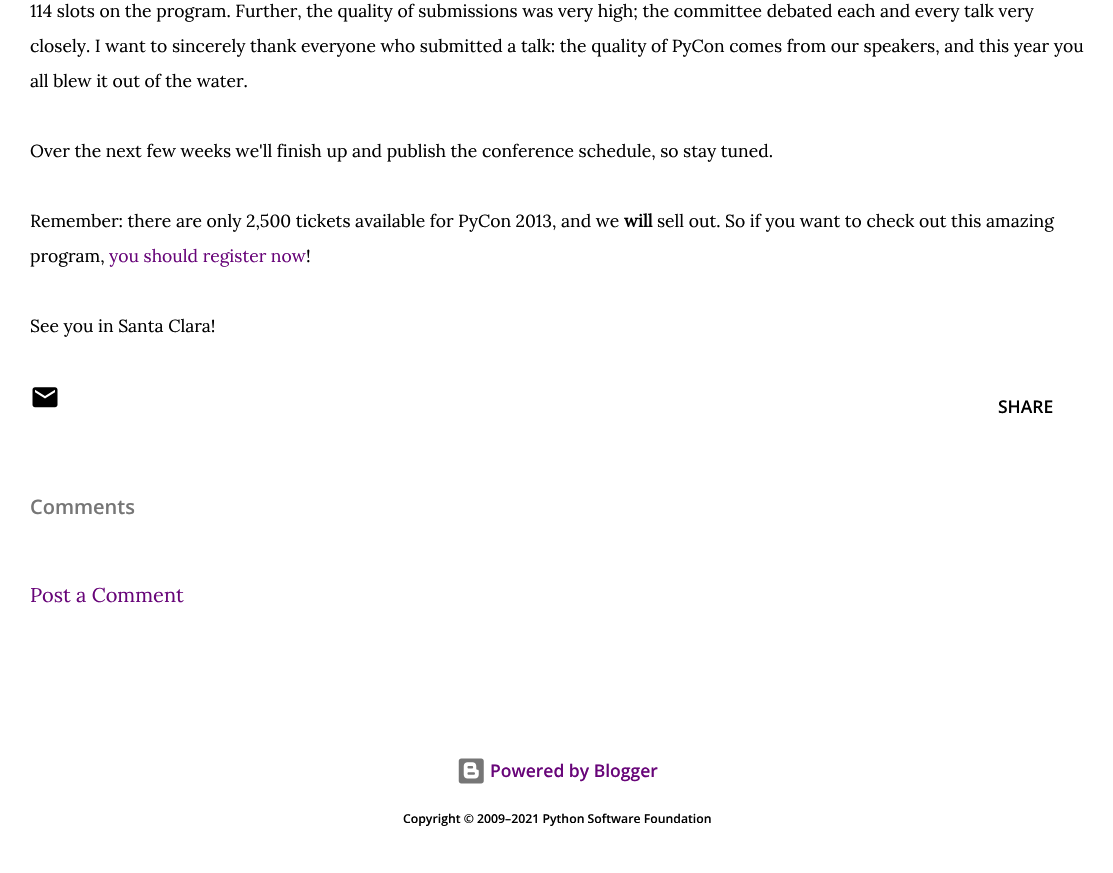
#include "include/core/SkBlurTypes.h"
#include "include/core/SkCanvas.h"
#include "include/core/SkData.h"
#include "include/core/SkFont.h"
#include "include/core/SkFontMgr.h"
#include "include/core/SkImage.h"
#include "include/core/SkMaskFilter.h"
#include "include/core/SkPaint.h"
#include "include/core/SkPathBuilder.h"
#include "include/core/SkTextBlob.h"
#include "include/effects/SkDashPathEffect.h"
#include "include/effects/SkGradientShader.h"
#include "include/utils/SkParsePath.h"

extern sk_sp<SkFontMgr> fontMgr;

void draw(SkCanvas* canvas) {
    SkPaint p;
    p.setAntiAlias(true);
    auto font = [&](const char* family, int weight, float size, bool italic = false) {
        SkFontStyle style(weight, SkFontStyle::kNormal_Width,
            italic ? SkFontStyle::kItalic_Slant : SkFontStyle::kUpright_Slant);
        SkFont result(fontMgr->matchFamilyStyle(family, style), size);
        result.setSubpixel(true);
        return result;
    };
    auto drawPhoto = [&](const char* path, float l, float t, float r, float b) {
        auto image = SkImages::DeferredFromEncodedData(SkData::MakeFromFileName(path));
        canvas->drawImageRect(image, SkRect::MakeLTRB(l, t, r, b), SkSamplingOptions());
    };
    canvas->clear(0xFFFFFFFF);
    auto font1 = font("Lora", 400, 17.5f);
    p.setColor(0xFF000000);
    {
        const struct { const char* s; float x, y; } items[] = {
            {"114 slots on the program. Further, the quality of submissions was very high; the committee debated each and every talk very", 30, 17},
            {"closely. I want to sincerely thank everyone who submitted a talk: the quality of PyCon comes from our speakers, and this year you", 30, 52},
            {"all blew it out of the water.", 30, 87},
            {"Over the next few weeks we'll finish up and publish the conference schedule, so stay tuned.", 30, 157},
            {"Remember: there are only 2,500 tickets available for PyCon 2013, and we", 30, 227},
        };
        for (auto [s, x, y] : items) {
            canvas->drawString(s, x, y, font1, p);
        }
    }
    auto font2 = font("Lora", 700, 17.5f);
    canvas->drawString("will", 624, 227, font2, p);
    canvas->drawString("sell out. So if you want to check out this amazing", 657, 227, font1, p);
    canvas->drawString("program,", 30, 262, font1, p);
    p.setColor(0xFF680579);
    canvas->drawString("you should register now", 109, 262, font1, p);
    p.setColor(0xFF000000);
    canvas->drawString("!", 306, 262, font1, p);
    canvas->drawString("See you in Santa Clara!", 30, 332, font1, p);
    drawPhoto("media/1.png", 32, 387, 58, 408);
    auto font3 = font("Open Sans", 600, 17.5f);
    canvas->drawString("SHARE", 998, 413, font3, p);
    auto font4 = font("Open Sans", 600, 20);
    p.setColor(0xFF767676);
    canvas->drawString("Comments", 30, 514, font4, p);
    auto font5 = font("Lora", 400, 20);
    p.setColor(0xFF680579);
    canvas->drawString("Post a Comment", 30, 602, font5, p);
    drawPhoto("media/2.png", 458, 758, 484, 784);
    canvas->drawString("Powered by Blogger", 490, 777, font3, p);
    auto font6 = font("Open Sans", 600, 12.25f);
    p.setColor(0xFF000000);
    canvas->drawString("Copyright © 2009–2021 Python Software Foundation", 403, 823, font6, p);
}
